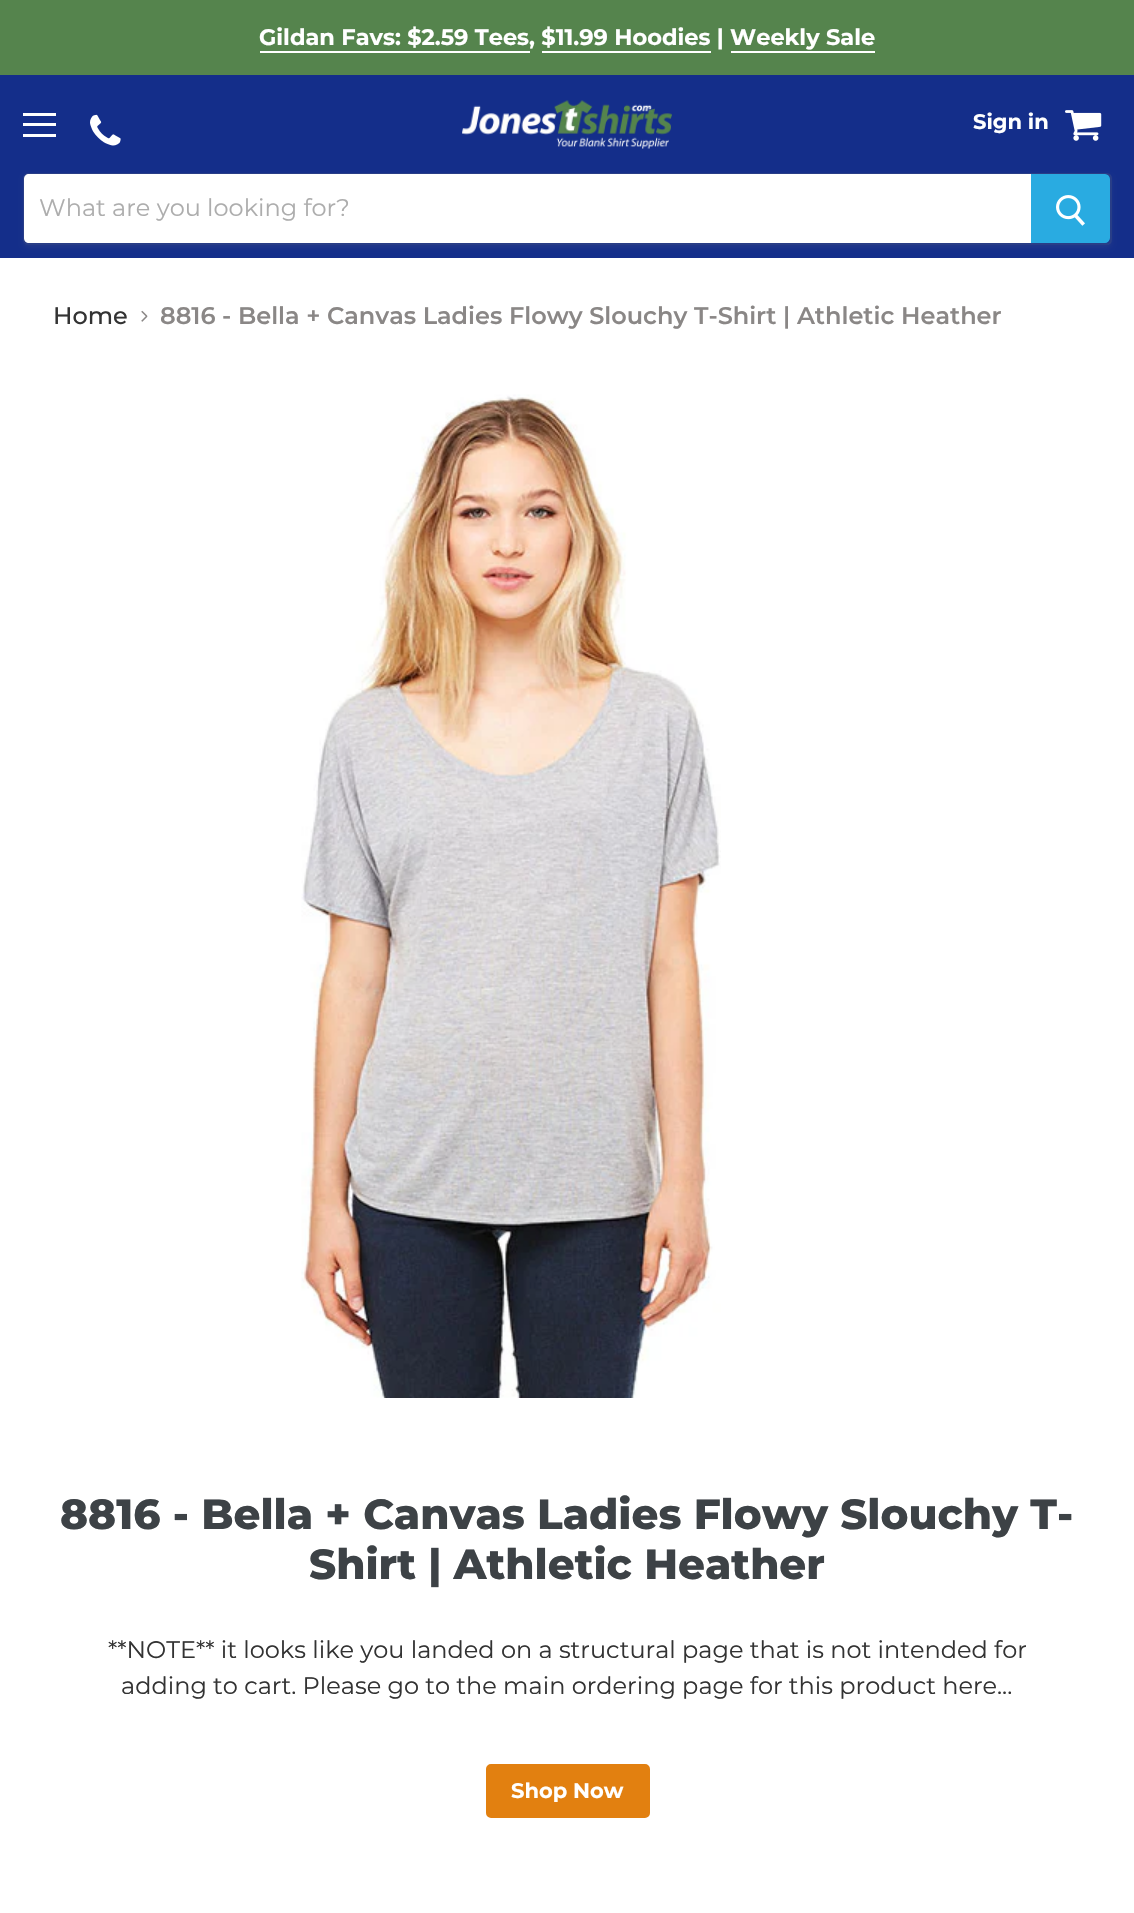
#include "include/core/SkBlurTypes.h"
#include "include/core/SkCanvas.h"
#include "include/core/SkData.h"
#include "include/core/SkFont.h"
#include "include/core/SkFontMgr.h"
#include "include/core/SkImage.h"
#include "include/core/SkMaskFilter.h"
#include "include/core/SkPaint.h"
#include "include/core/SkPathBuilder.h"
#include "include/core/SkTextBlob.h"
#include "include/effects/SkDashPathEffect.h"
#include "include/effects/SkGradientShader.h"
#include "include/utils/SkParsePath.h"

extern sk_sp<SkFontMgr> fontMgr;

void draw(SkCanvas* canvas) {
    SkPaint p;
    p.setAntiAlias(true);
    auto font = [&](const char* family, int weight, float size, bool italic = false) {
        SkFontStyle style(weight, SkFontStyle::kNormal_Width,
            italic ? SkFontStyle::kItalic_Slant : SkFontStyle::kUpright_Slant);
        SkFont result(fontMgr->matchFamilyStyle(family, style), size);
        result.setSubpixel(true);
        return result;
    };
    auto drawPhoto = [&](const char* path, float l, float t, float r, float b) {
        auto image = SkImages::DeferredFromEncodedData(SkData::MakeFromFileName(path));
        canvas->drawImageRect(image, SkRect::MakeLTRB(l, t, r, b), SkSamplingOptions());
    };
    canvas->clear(0xFFFFFFFF);
    p.setColor(0xFF55844D);
    canvas->drawRect(SkRect::MakeLTRB(0, 0, 1134, 75), p);
    auto font1 = font("Montserrat", 700, 22.5f);
    p.setColor(0xFFFFFFFF);
    canvas->drawString("Gildan Favs: $2.59 Tees, $11.99 Hoodies | Weekly Sale", 259, 45, font1, p);
    {
        const struct { float l, t, r, b; SkColor color; } items[] = {
            {260, 51, 530, 53, 0xFFFFFFFF},
            {542, 51, 711, 53, 0xFFFFFFFF},
            {731, 51, 875, 53, 0xFFFFFFFF},
            {0, 75, 1134, 258, 0xFF142E8A},
            {23, 113, 56, 116, 0xFFFFFFFF},
            {23, 123, 56, 126, 0xFFFFFFFF},
            {23, 134, 56, 137, 0xFFFFFFFF},
        };
        for (auto [l, t, r, b, color] : items) {
            p.setColor(color);
            canvas->drawRect(SkRect::MakeLTRB(l, t, r, b), p);
        }
    }
    drawPhoto("media/1.png", 90, 114, 121, 146);
    auto font2 = font("Montserrat", 700, 21);
    canvas->drawString("Sign in", 973, 129, font2, p);
    drawPhoto("media/2.png", 1065, 110, 1102, 141);
    drawPhoto("media/3.png", 462, 100, 672, 149);
    canvas->save();
    canvas->clipPath(SkPathBuilder(SkPathFillType::kEvenOdd).moveTo(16, 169).lineTo(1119, 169).lineTo(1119, 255).lineTo(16, 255).close().moveTo(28, 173).lineTo(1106, 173).cubicTo(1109.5f, 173, 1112, 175.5f, 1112, 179).lineTo(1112, 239).cubicTo(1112, 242.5f, 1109.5f, 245, 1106, 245).lineTo(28, 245).cubicTo(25, 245, 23, 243, 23, 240).lineTo(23, 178).cubicTo(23, 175, 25, 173, 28, 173).close().detach(), true);
    p.setColor(0x1C7F7F7F);
    p.setMaskFilter(SkMaskFilter::MakeBlur(kNormal_SkBlurStyle, 2));
    canvas->drawRoundRect(SkRect::MakeLTRB(23, 176, 1112, 248), 6, 6, p);
    p.setMaskFilter(nullptr);
    canvas->restore();
    p.setStyle(SkPaint::kStroke_Style);
    p.setStrokeWidth(2);
    p.setColor(0x337F7F7F);
    canvas->drawPath(SkPathBuilder().moveTo(28, 174).lineTo(1106, 174).cubicTo(1109, 174, 1111, 176, 1111, 179).lineTo(1111, 239).cubicTo(1111, 242, 1109, 244, 1106, 244).lineTo(28, 244).cubicTo(26, 244, 24, 242, 24, 240).lineTo(24, 178).cubicTo(24, 176, 26, 174, 28, 174).close().detach(), p);
    p.setStyle(SkPaint::kFill_Style);
    p.setColor(0xFFFFFFFF);
    canvas->drawPath(SkPathBuilder().moveTo(29, 174).lineTo(1031, 174).lineTo(1031, 243).lineTo(29, 243).cubicTo(26, 243, 24, 241, 24, 238).lineTo(24, 179).cubicTo(24, 176, 26, 174, 29, 174).close().detach(), p);
    auto font3 = font("Montserrat", 400, 24);
    p.setColor(0xFFADADAD);
    canvas->drawString("What are you looking for?", 39, 216, font3, p);
    p.setColor(0xFF29ABE1);
    canvas->drawPath(SkPathBuilder().moveTo(1032, 175).lineTo(1105, 175).cubicTo(1107, 175, 1109, 177, 1109, 179).lineTo(1109, 238).cubicTo(1109, 240, 1107, 242, 1105, 242).lineTo(1032, 242).close().detach(), p);
    p.setStyle(SkPaint::kStroke_Style);
    canvas->drawPath(SkPathBuilder().moveTo(1032, 175).lineTo(1105, 175).cubicTo(1107, 175, 1109, 177, 1109, 179).lineTo(1109, 238).cubicTo(1109, 240, 1107, 242, 1105, 242).lineTo(1032, 242).close().detach(), p);
    drawPhoto("media/4.png", 1056, 195, 1085, 226);
    auto font4 = font("Montserrat", 500, 24);
    p.setStyle(SkPaint::kFill_Style);
    p.setColor(0xFF333333);
    canvas->drawString("Home", 53, 324, font4, p);
    drawPhoto("media/5.png", 141, 310, 148, 322);
    auto font5 = font("Montserrat", 600, 24);
    p.setColor(0xFF8A8786);
    canvas->drawString("8816 - Bella + Canvas Ladies Flowy Slouchy T-Shirt | Athletic Heather", 160, 324, font5, p);
    drawPhoto("media/6.png", 301, 394, 721, 1398);
    auto font6 = font("Montserrat", 800, 42);
    p.setColor(0xFF3D4246);
    canvas->drawString("8816 - Bella + Canvas Ladies Flowy Slouchy T-", 60, 1529, font6, p);
    canvas->drawString("Shirt | Athletic Heather", 309, 1579, font6, p);
    p.setColor(0xFF333333);
    canvas->drawString("**NOTE** it looks like you landed on a structural page that is not intended for", 108, 1658, font3, p);
    canvas->drawString("adding to cart. Please go to the main ordering page for this product here...", 121, 1694, font3, p);
    p.setColor(0xFFE28010);
    canvas->drawRoundRect(SkRect::MakeLTRB(487, 1765, 649, 1817), 4, 4, p);
    p.setStyle(SkPaint::kStroke_Style);
    canvas->drawRoundRect(SkRect::MakeLTRB(487, 1765, 649, 1817), 4, 4, p);
    p.setStyle(SkPaint::kFill_Style);
    p.setColor(0xFFFFFFFF);
    canvas->drawString("Shop Now", 511, 1798, font2, p);
}
